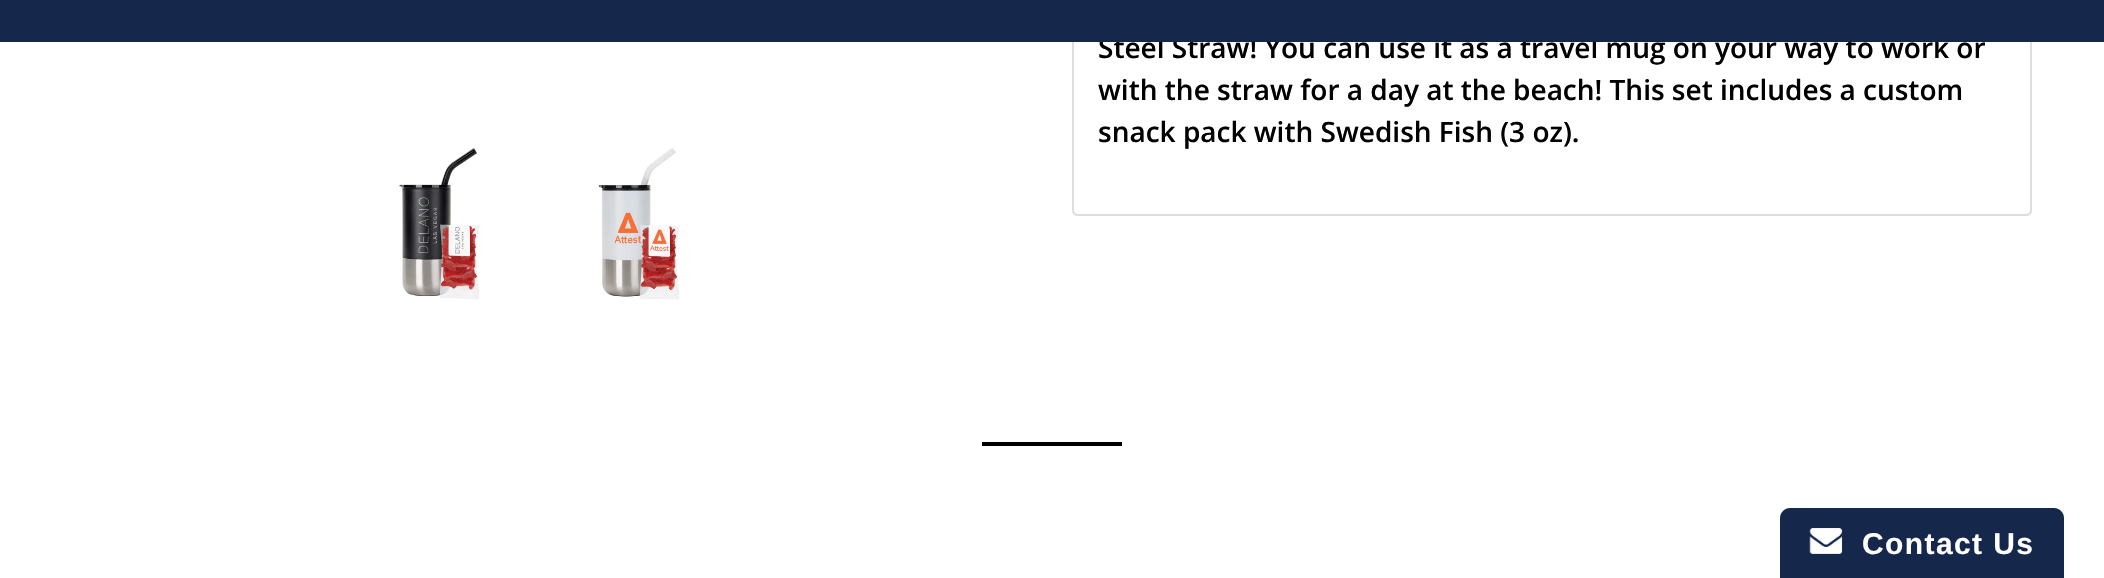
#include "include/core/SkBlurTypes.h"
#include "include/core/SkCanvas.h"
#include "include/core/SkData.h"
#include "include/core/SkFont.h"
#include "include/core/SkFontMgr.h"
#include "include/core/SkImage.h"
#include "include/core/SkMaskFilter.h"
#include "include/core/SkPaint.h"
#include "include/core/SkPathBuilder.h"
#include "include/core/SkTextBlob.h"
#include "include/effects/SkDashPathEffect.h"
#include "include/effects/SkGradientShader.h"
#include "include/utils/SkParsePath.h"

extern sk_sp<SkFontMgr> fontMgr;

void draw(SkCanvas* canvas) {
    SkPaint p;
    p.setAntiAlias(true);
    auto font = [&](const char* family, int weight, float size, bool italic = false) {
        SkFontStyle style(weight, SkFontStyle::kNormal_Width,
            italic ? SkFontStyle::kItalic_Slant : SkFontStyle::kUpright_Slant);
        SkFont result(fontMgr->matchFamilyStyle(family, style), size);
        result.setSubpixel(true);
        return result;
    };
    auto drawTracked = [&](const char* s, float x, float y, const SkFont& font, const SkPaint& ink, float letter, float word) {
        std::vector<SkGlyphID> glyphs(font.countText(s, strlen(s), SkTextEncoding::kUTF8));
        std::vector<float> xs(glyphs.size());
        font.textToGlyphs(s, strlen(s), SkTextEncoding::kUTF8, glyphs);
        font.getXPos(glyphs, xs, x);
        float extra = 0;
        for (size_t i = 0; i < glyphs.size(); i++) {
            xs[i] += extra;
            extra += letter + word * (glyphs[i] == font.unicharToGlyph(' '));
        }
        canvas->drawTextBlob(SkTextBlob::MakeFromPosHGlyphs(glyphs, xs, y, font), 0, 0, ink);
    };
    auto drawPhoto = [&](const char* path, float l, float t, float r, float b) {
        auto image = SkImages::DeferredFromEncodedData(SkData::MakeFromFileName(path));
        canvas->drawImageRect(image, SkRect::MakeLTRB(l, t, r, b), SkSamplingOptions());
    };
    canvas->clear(0xFFFFFFFF);
    p.setStyle(SkPaint::kStroke_Style);
    p.setStrokeWidth(2);
    p.setColor(0xFFDDDDDD);
    canvas->drawPath(SkPathBuilder().moveTo(1073, -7).lineTo(2026, -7).cubicTo(2029, -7, 2031, -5, 2031, -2).lineTo(2031, 210).cubicTo(2031, 213, 2029, 215, 2026, 215).lineTo(1078, 215).cubicTo(1075, 215, 1073, 213, 1073, 210).close().detach(), p);
    auto font1 = font("Open Sans", 600, 28);
    p.setStyle(SkPaint::kFill_Style);
    p.setColor(0xFF000000);
    canvas->drawString("Steel Straw! You can use it as a travel mug on your way to work or", 1098, 58, font1, p);
    p.setColor(0xFF15284C);
    canvas->drawRect(SkRect::MakeLTRB(0, 0, 2104, 42), p);
    p.setColor(0xFF000000);
    canvas->drawString("with the straw for a day at the beach! This set includes a custom", 1098, 100, font1, p);
    canvas->drawString("snack pack with Swedish Fish (3 oz).", 1098, 142, font1, p);
    drawPhoto("media/1.png", 399, 147, 480, 299);
    drawPhoto("media/2.png", 598, 148, 680, 300);
    canvas->drawRect(SkRect::MakeLTRB(982, 442, 1122, 446), p);
    p.setColor(0xFF15284C);
    canvas->drawPath(SkPathBuilder().moveTo(1790, 508).lineTo(2054, 508).cubicTo(2059.5f, 508, 2064, 512.5f, 2064, 518).lineTo(2064, 578).lineTo(1780, 578).lineTo(1780, 518).cubicTo(1780, 512.5f, 1784.5f, 508, 1790, 508).close().detach(), p);
    drawPhoto("media/3.png", 1809, 528, 1843, 554);
    auto font2 = font("Liberation Sans", 700, 30);
    p.setColor(0xFFFFFFFF);
    drawTracked("Contact Us", 1862, 554, font2, p, 1.4f, 0);
}
